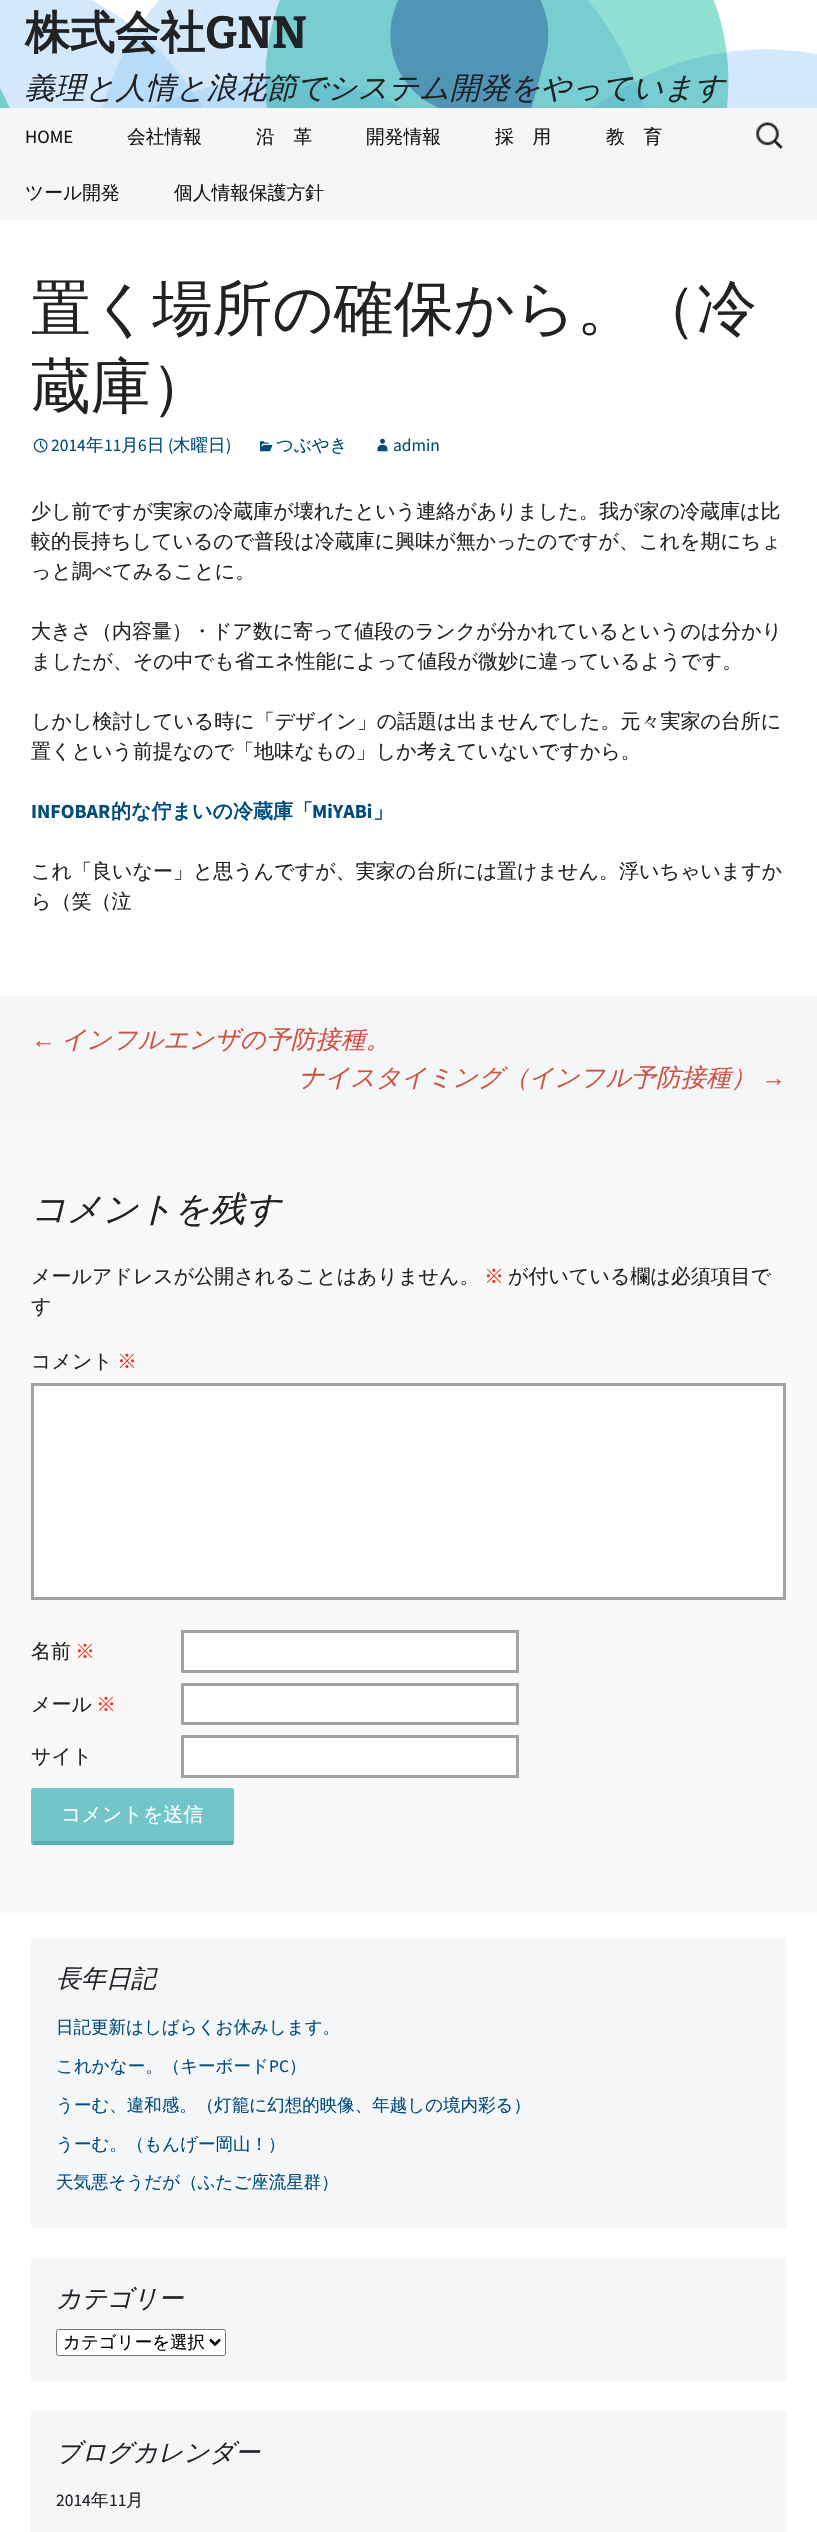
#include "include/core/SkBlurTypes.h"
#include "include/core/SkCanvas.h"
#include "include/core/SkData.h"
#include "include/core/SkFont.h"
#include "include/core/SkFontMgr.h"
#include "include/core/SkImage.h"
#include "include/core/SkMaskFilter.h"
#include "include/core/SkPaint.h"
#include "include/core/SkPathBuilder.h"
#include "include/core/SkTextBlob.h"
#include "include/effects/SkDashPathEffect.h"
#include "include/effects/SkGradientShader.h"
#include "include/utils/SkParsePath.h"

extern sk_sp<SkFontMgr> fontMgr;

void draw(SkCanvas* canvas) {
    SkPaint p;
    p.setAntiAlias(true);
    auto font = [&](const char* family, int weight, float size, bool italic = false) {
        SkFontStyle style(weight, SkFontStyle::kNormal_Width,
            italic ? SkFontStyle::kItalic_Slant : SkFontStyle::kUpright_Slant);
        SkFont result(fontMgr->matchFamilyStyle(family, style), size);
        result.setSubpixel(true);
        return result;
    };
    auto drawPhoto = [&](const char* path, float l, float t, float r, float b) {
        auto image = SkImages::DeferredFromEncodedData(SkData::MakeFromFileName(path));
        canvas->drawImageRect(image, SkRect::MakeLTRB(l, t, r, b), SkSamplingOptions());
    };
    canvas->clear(0xFFFFFFFF);
    drawPhoto("media/1.png", 0, 0, 817, 108);
    auto font1 = font("WenQuanYi Zen Hei", 700, 45);
    p.setColor(0xFF202225);
    canvas->drawString("株式会社", 25, 48, font1, p);
    auto font2 = font("Bitter", 700, 45);
    canvas->drawString("GNN", 205, 48, font2, p);
    auto font3 = font("WenQuanYi Zen Hei", 500, 30, true);
    canvas->drawString("義理と人情と浪花節でシステム開発をやっています", 25, 98, font3, p);
    p.setColor(0xFFF4F6F8);
    canvas->drawRect(SkRect::MakeLTRB(0, 108, 817, 220), p);
    auto font4 = font("Source Sans Pro", 400, 18.75f);
    p.setColor(0xFF141412);
    canvas->drawString("HOME", 25, 143, font4, p);
    auto font5 = font("WenQuanYi Zen Hei", 500, 18.75f);
    {
        const struct { const char* s; float x, y; } items[] = {
            {"会社情報", 127, 143},
            {"沿　革", 256, 143},
            {"開発情報", 366, 143},
            {"採　用", 495, 143},
            {"教　育", 606, 143},
            {"ツール開発", 25, 199},
            {"個人情報保護方針", 174, 199},
        };
        for (auto [s, x, y] : items) {
            canvas->drawString(s, x, y, font5, p);
        }
    }
    drawPhoto("media/2.png", 756, 122, 783, 149);
    auto font6 = font("WenQuanYi Zen Hei", 500, 60);
    p.setColor(0xFF202225);
    canvas->drawString("置く場所の確保から。（冷", 31, 329, font6, p);
    canvas->drawString("蔵庫）", 31, 407, font6, p);
    drawPhoto("media/3.png", 33, 438, 48, 453);
    auto font7 = font("Source Sans Pro", 400, 17.5f);
    p.setColor(0xFF004C7C);
    canvas->drawString("2014", 51, 451, font7, p);
    auto font8 = font("WenQuanYi Zen Hei", 500, 17.5f);
    canvas->drawString("年", 86, 451, font8, p);
    canvas->drawString("11", 104, 451, font7, p);
    canvas->drawString("月", 121, 451, font8, p);
    canvas->drawString("6", 138, 451, font7, p);
    canvas->drawString("日", 147, 451, font8, p);
    canvas->drawString("(", 168, 451, font7, p);
    canvas->drawString("木曜日", 173, 451, font8, p);
    canvas->drawString(")", 226, 451, font7, p);
    drawPhoto("media/4.png", 260, 441, 273, 452);
    canvas->drawString("つぶやき", 276, 451, font8, p);
    drawPhoto("media/5.png", 377, 438, 388, 452);
    canvas->drawString("admin", 393, 451, font7, p);
    auto font9 = font("WenQuanYi Zen Hei", 500, 20);
    p.setColor(0xFF202225);
    {
        const struct { const char* s; float x, y; } items[] = {
            {"少し前ですが実家の冷蔵庫が壊れたという連絡がありました。我が家の冷蔵庫は比", 31, 518},
            {"較的長持ちしているので普段は冷蔵庫に興味が無かったのですが、これを期にちょ", 31, 548},
            {"っと調べてみることに。", 31, 578},
            {"大きさ（内容量）・ドア数に寄って値段のランクが分かれているというのは分かり", 31, 638},
            {"ましたが、その中でも省エネ性能によって値段が微妙に違っているようです。", 31, 668},
            {"しかし検討している時に「デザイン」の話題は出ませんでした。元々実家の台所に", 31, 728},
            {"置くという前提なので「地味なもの」しか考えていないですから。", 31, 758},
        };
        for (auto [s, x, y] : items) {
            canvas->drawString(s, x, y, font9, p);
        }
    }
    auto font10 = font("Source Sans Pro", 700, 20);
    p.setColor(0xFF004C7C);
    canvas->drawString("INFOBAR", 31, 818, font10, p);
    auto font11 = font("WenQuanYi Zen Hei", 700, 20);
    canvas->drawString("的な佇まいの冷蔵庫「", 111, 818, font11, p);
    canvas->drawString("MiYABi", 312, 818, font10, p);
    canvas->drawString("」", 373, 818, font11, p);
    p.setColor(0xFF202225);
    canvas->drawString("これ「良いなー」と思うんですが、実家の台所には置けません。浮いちゃいますか", 31, 878, font9, p);
    canvas->drawString("ら（笑（泣", 31, 908, font9, p);
    p.setColor(0xFFF4F6F8);
    canvas->drawRect(SkRect::MakeLTRB(0, 996, 817, 1121), p);
    auto font12 = font("Liberation Sans", 400, 25, true);
    p.setColor(0xFFCE5343);
    canvas->drawString("←", 31, 1048, font12, p);
    auto font13 = font("WenQuanYi Zen Hei", 500, 25, true);
    canvas->drawString("インフルエンザの予防接種。", 61, 1048, font13, p);
    canvas->drawString("ナイスタイミング（インフル予防接種）", 299, 1086, font13, p);
    canvas->drawString("→", 761, 1086, font12, p);
    p.setColor(0xFFFAF9F7);
    canvas->drawRect(SkRect::MakeLTRB(0, 1121, 817, 1913), p);
    auto font14 = font("WenQuanYi Zen Hei", 500, 35, true);
    p.setColor(0xFF202225);
    canvas->drawString("コメントを残す", 31, 1221, font14, p);
    canvas->drawString("メールアドレスが公開されることはありません。", 31, 1283, font9, p);
    p.setColor(0xFFED331C);
    canvas->drawString("※", 484, 1283, font9, p);
    p.setColor(0xFF202225);
    {
        const struct { const char* s; float x, y; } items[] = {
            {"が付いている欄は必須項目で", 508, 1283},
            {"す", 31, 1313},
            {"コメント", 31, 1368},
        };
        for (auto [s, x, y] : items) {
            canvas->drawString(s, x, y, font9, p);
        }
    }
    p.setColor(0xFFED331C);
    canvas->drawString("※", 117, 1368, font9, p);
    p.setColor(0xFFFFFFFF);
    canvas->drawRect(SkRect::MakeLTRB(32.5f, 1384.5f, 784.5f, 1598.5f), p);
    p.setStyle(SkPaint::kStroke_Style);
    p.setStrokeWidth(3);
    p.setColor(0xFFA2A2A2);
    canvas->drawRect(SkRect::MakeLTRB(32.5f, 1384.5f, 784.5f, 1598.5f), p);
    p.setStyle(SkPaint::kFill_Style);
    p.setColor(0xFF202225);
    canvas->drawString("名前", 31, 1658, font9, p);
    p.setColor(0xFFED331C);
    canvas->drawString("※", 75, 1658, font9, p);
    p.setColor(0xFFFFFFFF);
    canvas->drawRect(SkRect::MakeLTRB(182.5f, 1631.5f, 517.5f, 1671.5f), p);
    p.setStyle(SkPaint::kStroke_Style);
    p.setColor(0xFFA2A2A2);
    canvas->drawRect(SkRect::MakeLTRB(182.5f, 1631.5f, 517.5f, 1671.5f), p);
    p.setStyle(SkPaint::kFill_Style);
    p.setColor(0xFF202225);
    canvas->drawString("メール", 31, 1711, font9, p);
    p.setColor(0xFFED331C);
    canvas->drawString("※", 96, 1711, font9, p);
    p.setColor(0xFFFFFFFF);
    canvas->drawRect(SkRect::MakeLTRB(182.5f, 1684.5f, 517.5f, 1723.5f), p);
    p.setStyle(SkPaint::kStroke_Style);
    p.setColor(0xFFA2A2A2);
    canvas->drawRect(SkRect::MakeLTRB(182.5f, 1684.5f, 517.5f, 1723.5f), p);
    p.setStyle(SkPaint::kFill_Style);
    p.setColor(0xFF202225);
    canvas->drawString("サイト", 31, 1763, font9, p);
    p.setColor(0xFFFFFFFF);
    canvas->drawRect(SkRect::MakeLTRB(182.5f, 1736.5f, 517.5f, 1776.5f), p);
    p.setStyle(SkPaint::kStroke_Style);
    p.setColor(0xFFA2A2A2);
    canvas->drawRect(SkRect::MakeLTRB(182.5f, 1736.5f, 517.5f, 1776.5f), p);
    p.setStyle(SkPaint::kFill_Style);
    p.setColor(0xFF72C6CA);
    canvas->drawRoundRect(SkRect::MakeLTRB(31, 1788, 234, 1845), 2.5f, 2.5f, p);
    p.setColor(0xFF57ADB2);
    canvas->drawRect(SkRect::MakeLTRB(33, 1841, 233, 1845), p);
    p.setColor(0xFFFFFFFF);
    canvas->drawString("コメントを送信", 61, 1821, font9, p);
    p.setColor(0xFFF4F6F8);
    canvas->drawRect(SkRect::MakeLTRB(31, 1938, 786, 2228), p);
    p.setColor(0xFF202225);
    canvas->drawString("長年日記", 56, 1987, font13, p);
    p.setColor(0xFF004C7C);
    canvas->drawString("日記更新はしばらくお休みします。", 56, 2033, font8, p);
    canvas->drawString("これかなー。（キーボード", 56, 2072, font8, p);
    canvas->drawString("PC", 269, 2072, font7, p);
    {
        const struct { const char* s; float x, y; } items[] = {
            {"）", 289, 2072},
            {"うーむ、違和感。（灯籠に幻想的映像、年越しの境内彩る）", 56, 2111},
            {"うーむ。（もんげー岡山！）", 56, 2150},
            {"天気悪そうだが（ふたご座流星群）", 56, 2188},
        };
        for (auto [s, x, y] : items) {
            canvas->drawString(s, x, y, font8, p);
        }
    }
    p.setColor(0xFFF4F6F8);
    canvas->drawRect(SkRect::MakeLTRB(31, 2258, 786, 2381), p);
    p.setColor(0xFF202225);
    canvas->drawString("カテゴリー", 56, 2307, font13, p);
    p.setColor(0xFFFFFFFF);
    canvas->drawRoundRect(SkRect::MakeLTRB(56.5f, 2329.5f, 225.5f, 2355.5f), 2, 2, p);
    p.setStyle(SkPaint::kStroke_Style);
    p.setStrokeWidth(1);
    p.setColor(0xFF767676);
    canvas->drawRoundRect(SkRect::MakeLTRB(56.5f, 2329.5f, 225.5f, 2355.5f), 2, 2, p);
    p.setStrokeWidth(2.5f);
    p.setColor(0xFF000000);
    canvas->drawPath(SkPathBuilder().moveTo(210, 2339.5f).lineTo(215, 2344.5f).lineTo(220, 2339.5f).detach(), p);
    p.setStyle(SkPaint::kFill_Style);
    canvas->drawString("カテゴリーを選択", 63, 2348, font8, p);
    p.setColor(0xFFF4F6F8);
    canvas->drawRect(SkRect::MakeLTRB(31, 2411, 786, 2532), p);
    p.setColor(0xFF202225);
    canvas->drawString("ブログカレンダー", 56, 2461, font13, p);
    canvas->drawString("2014", 56, 2506, font7, p);
    canvas->drawString("年", 91, 2506, font8, p);
    canvas->drawString("11", 109, 2506, font7, p);
    canvas->drawString("月", 126, 2506, font8, p);
}
